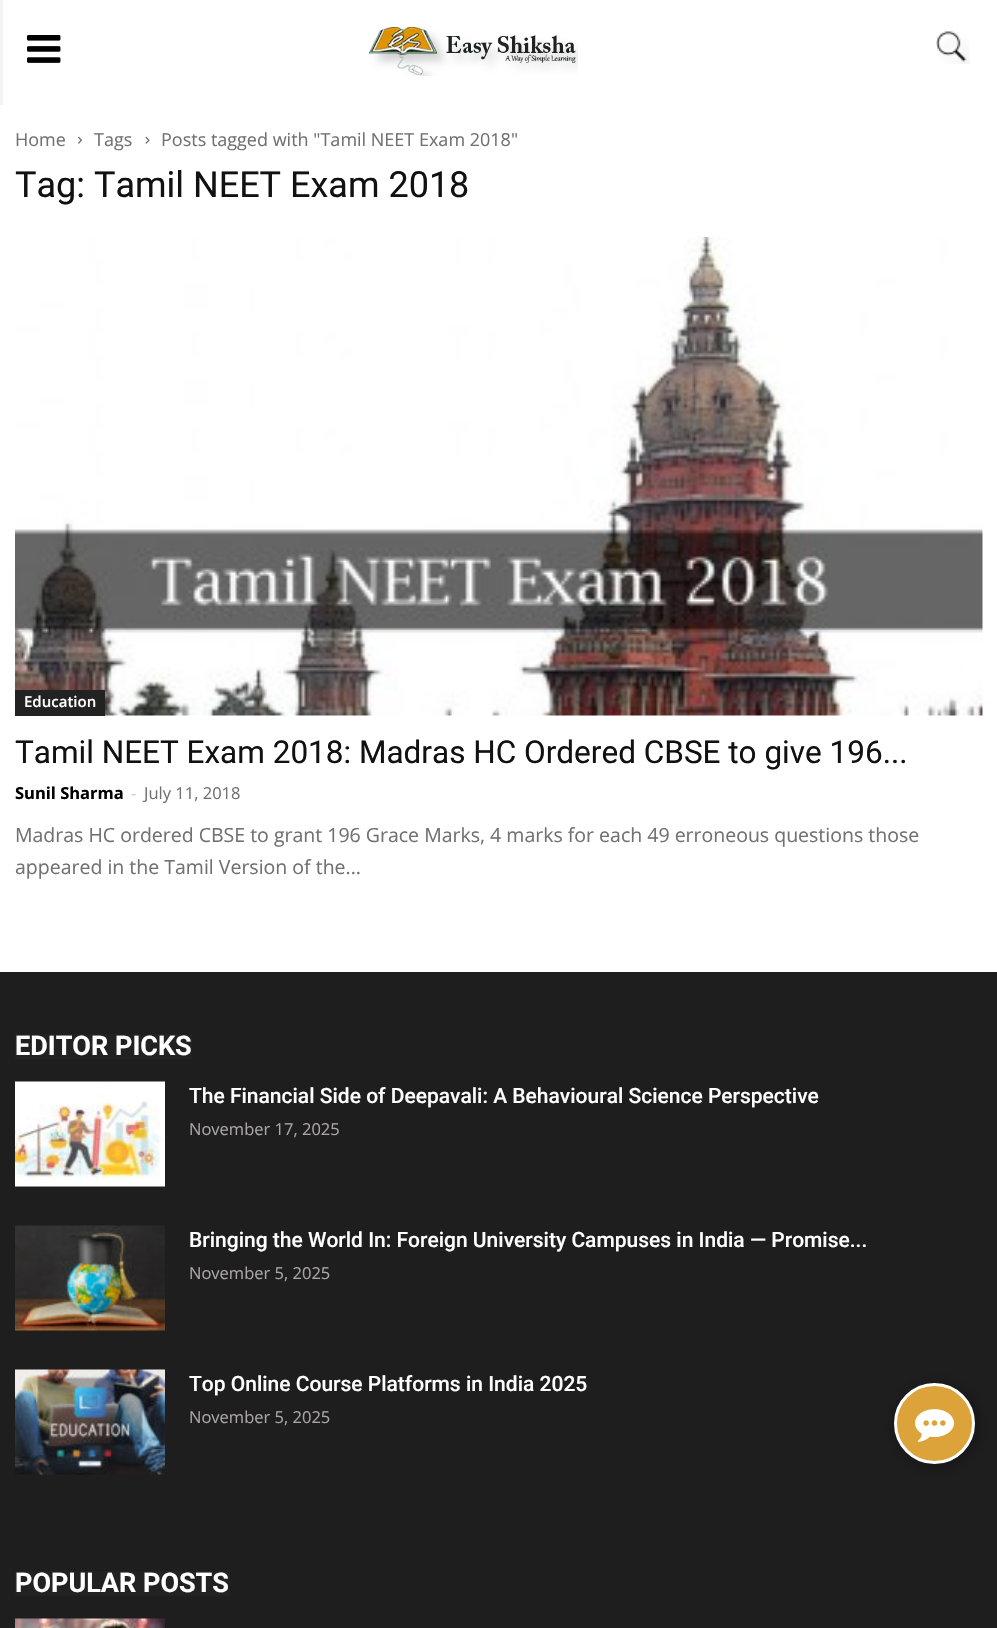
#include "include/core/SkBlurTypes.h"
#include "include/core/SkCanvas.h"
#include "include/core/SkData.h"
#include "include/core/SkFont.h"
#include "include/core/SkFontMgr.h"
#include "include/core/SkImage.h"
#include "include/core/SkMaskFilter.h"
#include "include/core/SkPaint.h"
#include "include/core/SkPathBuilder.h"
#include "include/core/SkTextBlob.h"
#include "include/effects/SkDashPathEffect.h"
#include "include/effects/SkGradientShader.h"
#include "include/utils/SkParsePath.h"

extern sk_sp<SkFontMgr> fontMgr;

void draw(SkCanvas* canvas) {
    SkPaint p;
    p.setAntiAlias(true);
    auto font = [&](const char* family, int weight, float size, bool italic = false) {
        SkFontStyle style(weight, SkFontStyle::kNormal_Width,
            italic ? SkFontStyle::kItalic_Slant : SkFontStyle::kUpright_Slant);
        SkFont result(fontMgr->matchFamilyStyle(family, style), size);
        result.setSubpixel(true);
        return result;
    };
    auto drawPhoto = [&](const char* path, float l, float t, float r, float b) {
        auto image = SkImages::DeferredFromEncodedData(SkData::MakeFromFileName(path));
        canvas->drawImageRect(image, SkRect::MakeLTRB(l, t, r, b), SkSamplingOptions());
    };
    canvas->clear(0xFFFFFFFF);
    p.setColor(0xFFF3F3F3);
    canvas->drawRect(SkRect::MakeLTRB(0, 0, 3, 105), p);
    drawPhoto("media/1.png", 27, 35, 61, 63);
    drawPhoto("media/2.png", 369, 27, 578, 76);
    drawPhoto("media/3.png", 935, 31, 970, 64);
    auto font1 = font("Open Sans", 400, 18);
    p.setColor(0xFF717171);
    canvas->drawString("Home", 15, 146, font1, p);
    drawPhoto("media/4.png", 78, 136, 82, 144);
    canvas->drawString("Tags", 94, 146, font1, p);
    drawPhoto("media/5.png", 145, 136, 150, 144);
    canvas->drawString("Posts tagged with \"Tamil NEET Exam 2018\"", 161, 146, font1, p);
    auto font2 = font("Roboto", 400, 36);
    p.setColor(0xFF111111);
    canvas->drawString("Tag: Tamil NEET Exam 2018", 15, 197, font2, p);
    drawPhoto("media/6.png", 15, 237, 983, 716);
    p.setColor(0xFF222222);
    canvas->drawRect(SkRect::MakeLTRB(15, 690, 105, 716), p);
    auto font3 = font("Open Sans", 600, 15);
    p.setColor(0xFFFFFFFF);
    canvas->drawString("Education", 24, 707, font3, p);
    auto font4 = font("Roboto", 400, 31.5f);
    p.setColor(0xFF111111);
    canvas->drawString("Tamil NEET Exam 2018: Madras HC Ordered CBSE to give 196...", 15, 763, font4, p);
    auto font5 = font("Open Sans", 700, 16.5f);
    p.setColor(0xFF000000);
    canvas->drawString("Sunil Sharma", 15, 799, font5, p);
    auto font6 = font("Open Sans", 400, 16.5f);
    p.setColor(0xFFCCCCCC);
    canvas->drawString("-", 131, 799, font6, p);
    p.setColor(0xFF717171);
    canvas->drawString("July 11, 2018", 144, 799, font6, p);
    auto font7 = font("Open Sans", 400, 19.5f);
    canvas->drawString("Madras HC ordered CBSE to grant 196 Grace Marks, 4 marks for each 49 erroneous questions those", 15, 842, font7, p);
    canvas->drawString("appeared in the Tamil Version of the...", 15, 874, font7, p);
    p.setColor(0xFF1E1E1E);
    canvas->drawRect(SkRect::MakeLTRB(0, 972, 997, 1628), p);
    p.setColor(0xFF222222);
    canvas->drawRect(SkRect::MakeLTRB(15, 1034, 192, 1059), p);
    auto font8 = font("Roboto", 700, 27);
    p.setColor(0xFFFFFFFF);
    canvas->drawString("EDITOR PICKS", 15, 1055, font8, p);
    drawPhoto("media/7.png", 15, 1081, 165, 1187);
    auto font9 = font("Roboto", 500, 21);
    canvas->drawString("The Financial Side of Deepavali: A Behavioural Science Perspective", 189, 1103, font9, p);
    p.setColor(0xFFABA6A6);
    canvas->drawString("November 17, 2025", 189, 1135, font6, p);
    drawPhoto("media/8.png", 15, 1225, 165, 1331);
    p.setColor(0xFFFFFFFF);
    canvas->drawString("Bringing the World In: Foreign University Campuses in India — Promise...", 189, 1247, font9, p);
    p.setColor(0xFFABA6A6);
    canvas->drawString("November 5, 2025", 189, 1279, font6, p);
    drawPhoto("media/9.png", 15, 1369, 165, 1475);
    p.setColor(0xFFFFFFFF);
    canvas->drawString("Top Online Course Platforms in India 2025", 189, 1391, font9, p);
    p.setColor(0xFFABA6A6);
    canvas->drawString("November 5, 2025", 189, 1423, font6, p);
    p.setColor(0xFF222222);
    canvas->drawRect(SkRect::MakeLTRB(15, 1571, 230, 1596), p);
    p.setColor(0xFFFFFFFF);
    canvas->drawString("POPULAR POSTS", 15, 1592, font8, p);
    drawPhoto("media/10.png", 15, 1618, 165, 1628);
    p.setColor(0x5E000000);
    p.setMaskFilter(SkMaskFilter::MakeBlur(kNormal_SkBlurStyle, 7.5f));
    canvas->drawRoundRect(SkRect::MakeLTRB(896, 1385, 977, 1466), 40.5f, 40.5f, p);
    p.setMaskFilter(nullptr);
    p.setColor(0xFFDBA339);
    canvas->drawCircle(934.5f, 1423.5f, 39, p);
    p.setStyle(SkPaint::kStroke_Style);
    p.setStrokeWidth(3);
    p.setColor(0xFFFFFFFF);
    canvas->drawCircle(934.5f, 1423.5f, 39, p);
    drawPhoto("media/11.png", 915, 1409, 954, 1442);
}
